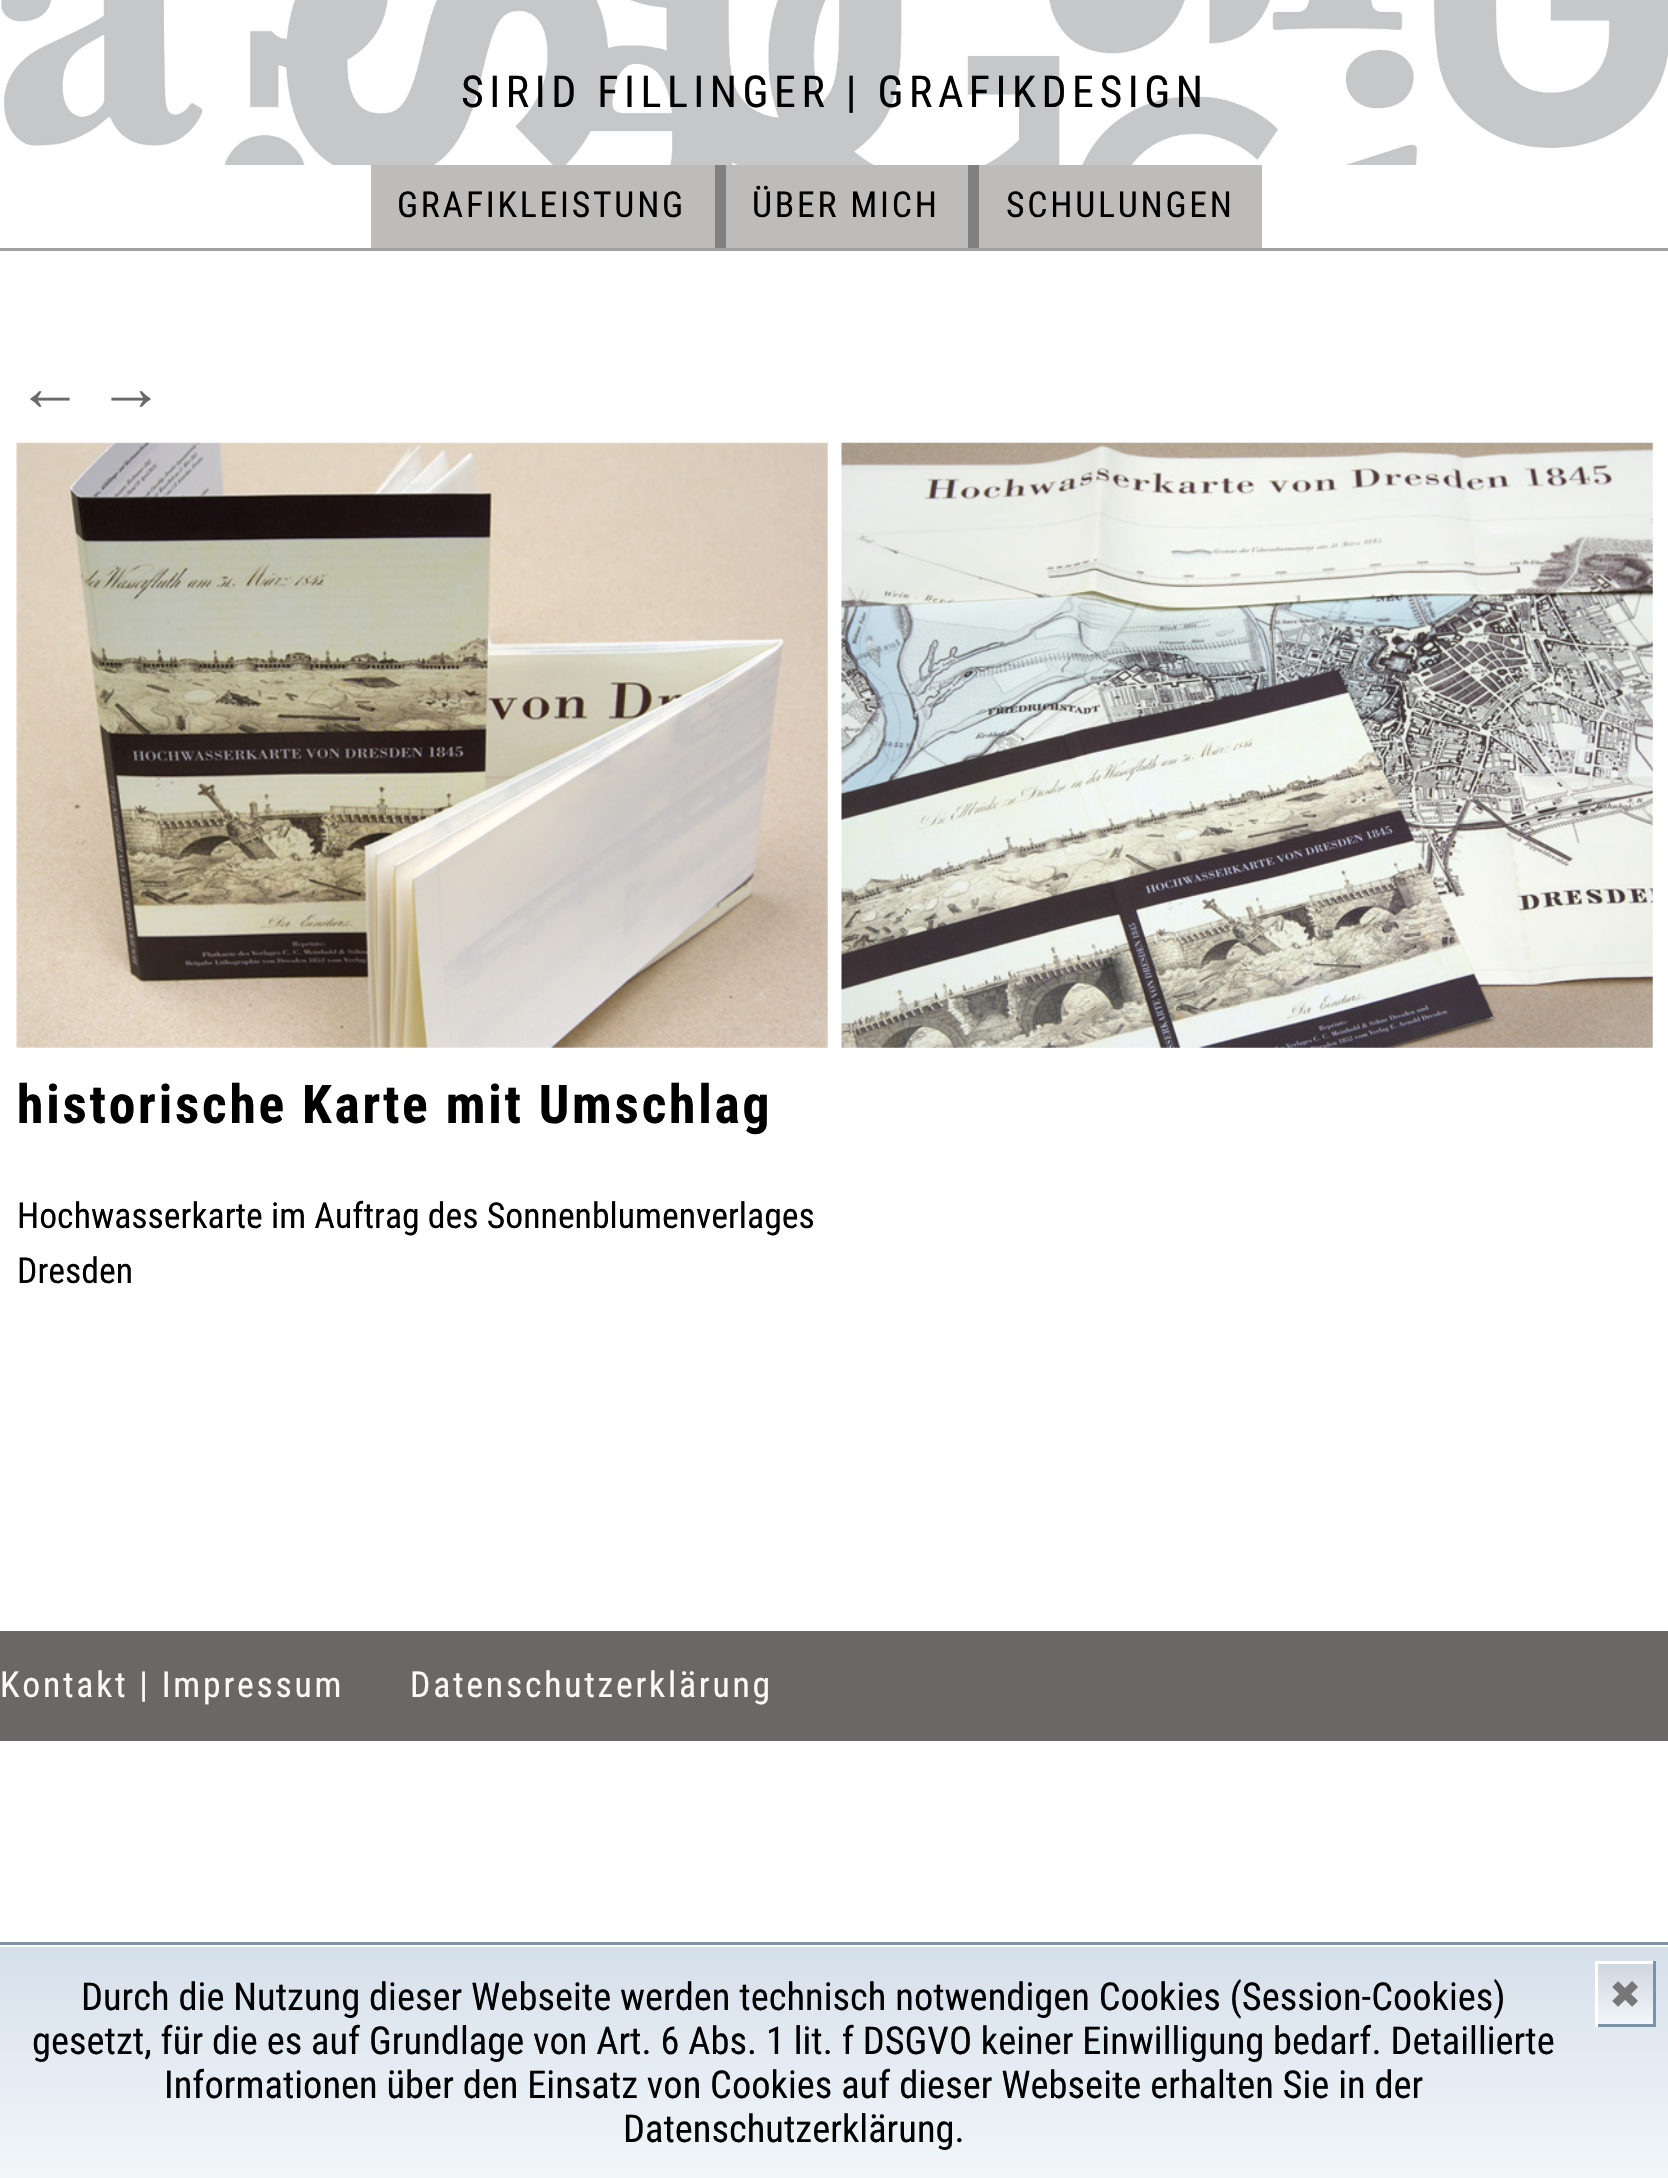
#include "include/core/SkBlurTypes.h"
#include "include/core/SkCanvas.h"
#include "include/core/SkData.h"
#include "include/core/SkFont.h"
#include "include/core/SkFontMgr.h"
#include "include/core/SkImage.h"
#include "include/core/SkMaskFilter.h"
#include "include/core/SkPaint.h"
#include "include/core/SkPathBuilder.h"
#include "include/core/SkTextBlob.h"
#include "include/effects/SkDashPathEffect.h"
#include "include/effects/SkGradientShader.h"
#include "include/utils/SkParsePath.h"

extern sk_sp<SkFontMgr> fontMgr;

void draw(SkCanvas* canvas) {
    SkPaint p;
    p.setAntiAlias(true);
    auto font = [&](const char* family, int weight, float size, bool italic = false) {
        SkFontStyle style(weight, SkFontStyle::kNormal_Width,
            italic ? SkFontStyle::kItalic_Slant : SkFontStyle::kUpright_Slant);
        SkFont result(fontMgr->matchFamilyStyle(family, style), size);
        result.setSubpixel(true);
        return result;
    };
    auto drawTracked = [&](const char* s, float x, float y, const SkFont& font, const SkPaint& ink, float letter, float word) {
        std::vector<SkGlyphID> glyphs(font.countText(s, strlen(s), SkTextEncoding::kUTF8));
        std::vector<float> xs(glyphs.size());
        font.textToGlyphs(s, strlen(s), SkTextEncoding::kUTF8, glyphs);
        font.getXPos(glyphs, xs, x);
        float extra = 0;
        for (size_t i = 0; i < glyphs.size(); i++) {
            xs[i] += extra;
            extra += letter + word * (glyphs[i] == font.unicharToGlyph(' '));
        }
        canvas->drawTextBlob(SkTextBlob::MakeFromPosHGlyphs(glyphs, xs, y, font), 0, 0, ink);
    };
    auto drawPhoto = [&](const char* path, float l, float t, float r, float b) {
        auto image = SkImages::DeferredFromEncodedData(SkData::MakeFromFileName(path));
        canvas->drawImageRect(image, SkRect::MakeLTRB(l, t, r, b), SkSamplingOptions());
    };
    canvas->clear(0xFFFFFFFF);
    p.setColor(0xFFA2A2A2);
    canvas->drawRect(SkRect::MakeLTRB(0, 248, 1668, 251), p);
    drawPhoto("media/1.png", 1, 0, 1668, 165);
    auto font1 = font("Roboto Condensed", 400, 44);
    p.setColor(0xFF000000);
    drawTracked("SIRID FILLINGER | GRAFIKDESIGN", 461, 107, font1, p, 5.5f, 0);
    p.setColor(0xFFBEBBBB);
    canvas->drawRect(SkRect::MakeLTRB(371, 165, 715, 248), p);
    p.setColor(0xFF808080);
    canvas->drawRect(SkRect::MakeLTRB(715, 165, 726, 248), p);
    auto font2 = font("Roboto Condensed", 400, 35.75f);
    p.setColor(0xFF000000);
    drawTracked("GRAFIKLEISTUNG", 397, 217, font2, p, 2.75f, 0);
    p.setColor(0xFFBEBBBB);
    canvas->drawRect(SkRect::MakeLTRB(726, 165, 968, 248), p);
    p.setColor(0xFF808080);
    canvas->drawRect(SkRect::MakeLTRB(968, 165, 979, 248), p);
    p.setColor(0xFF000000);
    drawTracked("ÜBER MICH", 752, 217, font2, p, 2.75f, 0);
    p.setColor(0xFFBEBBBB);
    canvas->drawRect(SkRect::MakeLTRB(979, 165, 1262, 248), p);
    p.setColor(0xFF000000);
    drawTracked("SCHULUNGEN", 1006, 217, font2, p, 2.75f, 0);
    auto font3 = font("Liberation Sans", 400, 66);
    p.setColor(0xFF696969);
    canvas->drawString("←", 17, 410, font3, p);
    canvas->drawString("→", 98, 410, font3, p);
    drawPhoto("media/2.png", 841, 442, 1653, 1048);
    drawPhoto("media/3.png", 16, 442, 828, 1048);
    auto font4 = font("Roboto Condensed", 700, 53.6f);
    p.setColor(0xFF000000);
    drawTracked("historische Karte mit Umschlag", 17, 1123, font4, p, 2.75f, 0);
    canvas->drawString("Hochwasserkarte im Auftrag des Sonnenblumenverlages", 17, 1228, font2, p);
    canvas->drawString("Dresden", 17, 1283, font2, p);
    p.setColor(0xFF6B6767);
    canvas->drawRect(SkRect::MakeLTRB(0, 1631, 1668, 1741), p);
    p.setColor(0xFFFBF9F9);
    drawTracked("Kontakt | Impressum", 0, 1697, font2, p, 2.75f, 0);
    drawTracked("Datenschutzerklärung", 410, 1697, font2, p, 2.75f, 0);
    {
        const SkColor colors[] = {0xFFD6E0EB, 0xFFF2F6F9};
        const float stops[] = {0, 1};
        const SkPoint ends[] = {{835, 1947}, {835, 2178}};
        p.setShader(SkGradientShader::MakeLinear(ends, colors, stops, 2, SkTileMode::kClamp));
        p.setAlpha(255);
    }
    canvas->drawRect(SkRect::MakeLTRB(0, 1947, 1668, 2178), p);
    p.setStyle(SkPaint::kStroke_Style);
    p.setStrokeWidth(3);
    p.setShader(nullptr);
    p.setColor(0xFF7B92A9);
    canvas->drawRect(SkRect::MakeLTRB(-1.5f, 1943.5f, 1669.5f, 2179.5f), p);
    auto font5 = font("Roboto Condensed", 400, 38.5f);
    p.setStyle(SkPaint::kFill_Style);
    p.setColor(0xFF000000);
    {
        const struct { const char* s; float x, y; } items[] = {
            {"Durch die Nutzung dieser Webseite werden technisch notwendigen Cookies (Session-Cookies)", 81, 2010},
            {"gesetzt, für die es auf Grundlage von Art. 6 Abs. 1 lit. f DSGVO keiner Einwilligung bedarf. Detaillierte", 32, 2054},
            {"Informationen über den Einsatz von Cookies auf dieser Webseite erhalten Sie in der", 164, 2098},
            {"Datenschutzerklärung.", 623, 2142},
        };
        for (auto [s, x, y] : items) {
            canvas->drawString(s, x, y, font5, p);
        }
    }
    {
        const SkColor colors[] = {0xFFCED6DF, 0xFFF2F6F9};
        const float stops[] = {0, 1};
        const SkPoint ends[] = {{1598, 1964}, {1598, 2024}};
        p.setShader(SkGradientShader::MakeLinear(ends, colors, stops, 2, SkTileMode::kClamp));
        p.setAlpha(255);
    }
    canvas->drawRect(SkRect::MakeLTRB(1598, 1964, 1653, 2024), p);
    p.setShader(nullptr);
    {
        const struct { float l, t, r, b; SkColor color; } items[] = {
            {1595, 1961, 1656, 1964, 0xFFFFFFFF},
            {1653, 1961, 1656, 2027, 0xFF7B92A9},
            {1595, 2024, 1656, 2027, 0xFF7B92A9},
            {1595, 1961, 1598, 2027, 0xFFFFFFFF},
        };
        for (auto [l, t, r, b, color] : items) {
            p.setColor(color);
            canvas->drawRect(SkRect::MakeLTRB(l, t, r, b), p);
        }
    }
    auto font6 = font("DejaVu Sans", 400, 38.5f);
    p.setColor(0xFF777777);
    canvas->drawString("✖", 1609, 2008, font6, p);
}
